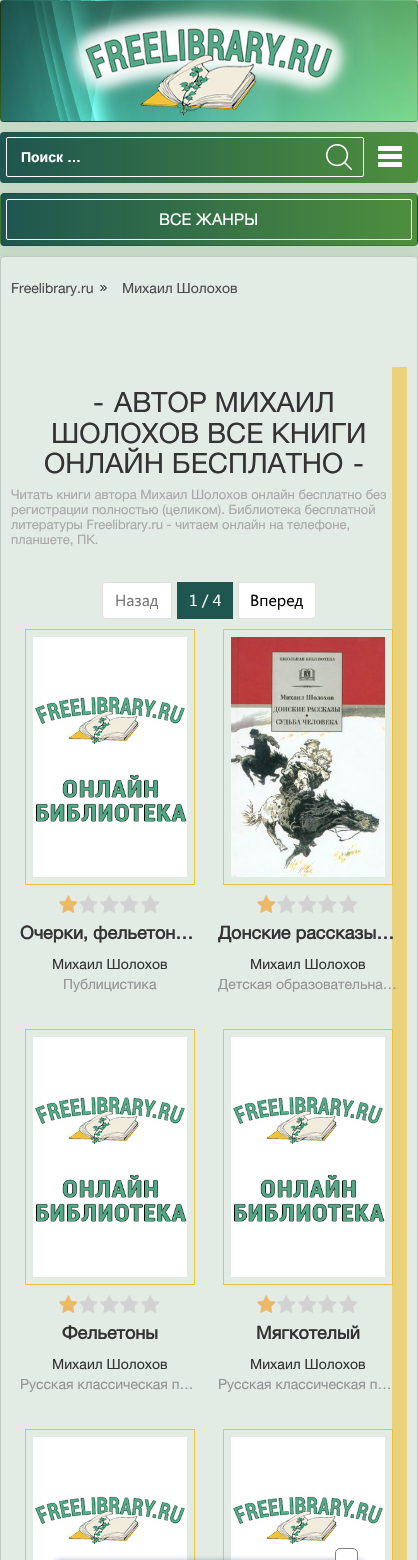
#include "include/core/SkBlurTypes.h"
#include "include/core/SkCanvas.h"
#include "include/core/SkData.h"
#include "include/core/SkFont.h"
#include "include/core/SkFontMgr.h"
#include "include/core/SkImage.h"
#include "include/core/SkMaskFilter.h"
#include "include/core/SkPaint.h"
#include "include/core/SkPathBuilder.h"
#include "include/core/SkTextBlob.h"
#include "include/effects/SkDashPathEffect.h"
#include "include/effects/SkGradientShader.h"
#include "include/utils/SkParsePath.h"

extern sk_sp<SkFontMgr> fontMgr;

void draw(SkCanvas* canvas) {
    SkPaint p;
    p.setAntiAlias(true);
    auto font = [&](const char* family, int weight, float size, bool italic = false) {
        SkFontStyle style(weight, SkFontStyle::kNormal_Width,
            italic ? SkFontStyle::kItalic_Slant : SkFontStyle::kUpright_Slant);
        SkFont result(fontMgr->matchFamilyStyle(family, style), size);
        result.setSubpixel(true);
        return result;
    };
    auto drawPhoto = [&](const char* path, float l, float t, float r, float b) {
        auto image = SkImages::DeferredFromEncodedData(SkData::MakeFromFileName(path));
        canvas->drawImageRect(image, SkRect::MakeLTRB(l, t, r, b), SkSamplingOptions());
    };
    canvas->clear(0xFFC8DCC9);
    p.setColor(0x0D000000);
    p.setMaskFilter(SkMaskFilter::MakeBlur(kNormal_SkBlurStyle, 3));
    canvas->drawRoundRect(SkRect::MakeLTRB(0, 0, 418, 122), 4, 4, p);
    p.setMaskFilter(nullptr);
    drawPhoto("media/1.png", 0, 0, 418, 122);
    p.setStyle(SkPaint::kStroke_Style);
    p.setStrokeWidth(1);
    p.setColor(0x26000000);
    canvas->drawRoundRect(SkRect::MakeLTRB(0.5f, 0.5f, 417.5f, 121.5f), 3.5f, 3.5f, p);
    drawPhoto("media/2.png", 63, 3, 354, 116);
    p.setStyle(SkPaint::kFill_Style);
    p.setColor(0x0D000000);
    p.setMaskFilter(SkMaskFilter::MakeBlur(kNormal_SkBlurStyle, 3));
    canvas->drawRoundRect(SkRect::MakeLTRB(0, 132, 418, 183), 4, 4, p);
    p.setMaskFilter(nullptr);
    {
        const SkColor colors[] = {0xFF1E5550, 0xFF4E8F3D};
        const float stops[] = {0, 1};
        const SkPoint ends[] = {{0, 158}, {418, 158}};
        p.setShader(SkGradientShader::MakeLinear(ends, colors, stops, 2, SkTileMode::kClamp));
        p.setAlpha(255);
    }
    canvas->drawRoundRect(SkRect::MakeLTRB(0, 132, 418, 183), 4, 4, p);
    p.setStyle(SkPaint::kStroke_Style);
    p.setShader(nullptr);
    p.setColor(0xFFFFFFFF);
    canvas->drawRoundRect(SkRect::MakeLTRB(6.5f, 137.5f, 363.5f, 176.5f), 1.5f, 1.5f, p);
    auto font1 = font("Liberation Sans", 700, 14);
    p.setStyle(SkPaint::kFill_Style);
    canvas->drawString("Поиск …", 21, 162, font1, p);
    drawPhoto("media/3.png", 326, 144, 352, 170);
    drawPhoto("media/4.png", 378, 146, 402, 167);
    p.setColor(0x0D000000);
    p.setMaskFilter(SkMaskFilter::MakeBlur(kNormal_SkBlurStyle, 3));
    canvas->drawRoundRect(SkRect::MakeLTRB(0, 193, 418, 246), 4, 4, p);
    p.setMaskFilter(nullptr);
    canvas->save();
    canvas->clipPath(SkPathBuilder().moveTo(4, 193).lineTo(414, 193).cubicTo(416, 193, 418, 195, 418, 197).lineTo(418, 242).cubicTo(418, 244, 416, 246, 414, 246).lineTo(4, 246).cubicTo(2, 246, 0, 244, 0, 242).lineTo(0, 197).cubicTo(0, 195, 2, 193, 4, 193).close().detach(), true);
    {
        const SkColor colors[] = {0xFF1E5550, 0xFF4E8F3D};
        const float stops[] = {0, 1};
        const SkPoint ends[] = {{-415, 220}, {1, 220}};
        p.setShader(SkGradientShader::MakeLinear(ends, colors, stops, 2, SkTileMode::kClamp));
        p.setAlpha(255);
    }
    canvas->drawRect(SkRect::MakeLTRB(0, 193, 1, 246), p);
    {
        const SkColor colors[] = {0xFF1E5550, 0xFF4E8F3D};
        const float stops[] = {0, 1};
        const SkPoint ends[] = {{1, 220}, {417, 220}};
        p.setShader(SkGradientShader::MakeLinear(ends, colors, stops, 2, SkTileMode::kClamp));
        p.setAlpha(255);
    }
    canvas->drawRect(SkRect::MakeLTRB(1, 193, 417, 246), p);
    {
        const SkColor colors[] = {0xFF1E5550, 0xFF4E8F3D};
        const float stops[] = {0, 1};
        const SkPoint ends[] = {{417, 220}, {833, 220}};
        p.setShader(SkGradientShader::MakeLinear(ends, colors, stops, 2, SkTileMode::kClamp));
        p.setAlpha(255);
    }
    canvas->drawRect(SkRect::MakeLTRB(417, 193, 418, 246), p);
    canvas->restore();
    p.setStyle(SkPaint::kStroke_Style);
    p.setShader(nullptr);
    p.setColor(0x26000000);
    canvas->drawRoundRect(SkRect::MakeLTRB(0.5f, 193.5f, 417.5f, 245.5f), 3.5f, 3.5f, p);
    p.setColor(0xFFFFFFFF);
    canvas->drawRoundRect(SkRect::MakeLTRB(6.5f, 199.5f, 411.5f, 239.5f), 1.5f, 1.5f, p);
    auto font2 = font("Helvetica Neue", 400, 16);
    p.setStyle(SkPaint::kFill_Style);
    canvas->drawString("ВСЕ ЖАНРЫ", 159, 225, font2, p);
    p.setColor(0x0D000000);
    p.setMaskFilter(SkMaskFilter::MakeBlur(kNormal_SkBlurStyle, 3));
    canvas->drawRoundRect(SkRect::MakeLTRB(0, 256, 418, 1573), 4, 4, p);
    p.setMaskFilter(nullptr);
    p.setColor(0xFFE2EBE4);
    canvas->drawRoundRect(SkRect::MakeLTRB(0, 256, 418, 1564), 4, 4, p);
    p.setStyle(SkPaint::kStroke_Style);
    p.setColor(0x26000000);
    canvas->drawRoundRect(SkRect::MakeLTRB(0.5f, 256.5f, 417.5f, 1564.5f), 3.5f, 3.5f, p);
    auto font3 = font("Helvetica Neue", 400, 14);
    p.setStyle(SkPaint::kFill_Style);
    p.setColor(0xFF4B4B4B);
    canvas->drawString("Freelibrary.ru", 11, 293, font3, p);
    drawPhoto("media/5.png", 100, 285, 107, 291);
    canvas->drawString("Михаил Шолохов", 122, 293, font3, p);
    auto font4 = font("Helvetica Neue", 400, 28);
    p.setColor(0xFF333333);
    {
        const struct { const char* s; float x, y; } items[] = {
            {"-", 93, 412},
            {"АВТОР МИХАИЛ", 114, 412},
            {"ШОЛОХОВ ВСЕ КНИГИ", 51, 443},
            {"ОНЛАЙН БЕСПЛАТНО", 44, 473},
            {"-", 353, 473},
        };
        for (auto [s, x, y] : items) {
            canvas->drawString(s, x, y, font4, p);
        }
    }
    auto font5 = font("Helvetica Neue", 400, 13);
    p.setColor(0xFFA9A9A9);
    {
        const struct { const char* s; float x, y; } items[] = {
            {"Читать книги автора Михаил Шолохов онлайн бесплатно без", 11, 499},
            {"регистрации полностью (целиком). Библиотека бесплатной", 11, 514},
            {"литературы Freelibrary.ru - читаем онлайн на телефоне,", 11, 529},
            {"планшете, ПК.", 11, 544},
        };
        for (auto [s, x, y] : items) {
            canvas->drawString(s, x, y, font5, p);
        }
    }
    p.setColor(0xFFFFFFFF);
    canvas->drawPath(SkPathBuilder().moveTo(106, 582.5f).lineTo(171.5f, 582.5f).lineTo(171.5f, 618.5f).lineTo(106, 618.5f).cubicTo(104, 618.5f, 102.5f, 617, 102.5f, 615).lineTo(102.5f, 586).cubicTo(102.5f, 584, 104, 582.5f, 106, 582.5f).close().detach(), p);
    p.setStyle(SkPaint::kStroke_Style);
    p.setColor(0xFFDDDDDD);
    canvas->drawPath(SkPathBuilder().moveTo(106, 582.5f).lineTo(171.5f, 582.5f).lineTo(171.5f, 618.5f).lineTo(106, 618.5f).cubicTo(104, 618.5f, 102.5f, 617, 102.5f, 615).lineTo(102.5f, 586).cubicTo(102.5f, 584, 104, 582.5f, 106, 582.5f).close().detach(), p);
    auto font6 = font("Segoe UI", 400, 16);
    p.setStyle(SkPaint::kFill_Style);
    p.setColor(0xFF777777);
    canvas->drawString("Назад", 115, 606, font6, p);
    p.setColor(0xFF1F5650);
    canvas->drawRect(SkRect::MakeLTRB(177, 582, 233, 619), p);
    p.setColor(0xFFFFFFFF);
    canvas->drawString("1 / 4", 189, 606, font6, p);
    canvas->drawPath(SkPathBuilder().moveTo(238.5f, 582.5f).lineTo(312, 582.5f).cubicTo(314, 582.5f, 315.5f, 584, 315.5f, 586).lineTo(315.5f, 615).cubicTo(315.5f, 617, 314, 618.5f, 312, 618.5f).lineTo(238.5f, 618.5f).close().detach(), p);
    p.setStyle(SkPaint::kStroke_Style);
    p.setColor(0xFFE2E2E2);
    canvas->drawPath(SkPathBuilder().moveTo(238.5f, 582.5f).lineTo(312, 582.5f).cubicTo(314, 582.5f, 315.5f, 584, 315.5f, 586).lineTo(315.5f, 615).cubicTo(315.5f, 617, 314, 618.5f, 312, 618.5f).lineTo(238.5f, 618.5f).close().detach(), p);
    p.setStyle(SkPaint::kFill_Style);
    p.setColor(0xFF000000);
    canvas->drawString("Вперед", 250, 606, font6, p);
    p.setStyle(SkPaint::kStroke_Style);
    p.setColor(0xFFF0C237);
    canvas->drawRect(SkRect::MakeLTRB(25.5f, 629.5f, 194.5f, 884.5f), p);
    drawPhoto("media/6.png", 33, 637, 187, 877);
    drawPhoto("media/7.png", 59, 895, 78, 913);
    drawPhoto("media/8.png", 79, 895, 98, 913);
    drawPhoto("media/8.png", 100, 895, 119, 913);
    drawPhoto("media/8.png", 120, 895, 139, 913);
    drawPhoto("media/8.png", 141, 895, 160, 913);
    auto font7 = font("Helvetica Neue", 700, 18);
    p.setStyle(SkPaint::kFill_Style);
    p.setColor(0xFF333333);
    canvas->drawString("Очерки, фельетон…", 20, 939, font7, p);
    canvas->drawString("Михаил Шолохов", 52, 969, font3, p);
    p.setColor(0xFF959494);
    canvas->drawString("Публицистика", 63, 989, font3, p);
    p.setColor(0xFFEAD27C);
    canvas->drawRect(SkRect::MakeLTRB(392, 367, 407, 1560), p);
    p.setStyle(SkPaint::kStroke_Style);
    p.setColor(0xFFF0C237);
    canvas->drawRect(SkRect::MakeLTRB(223.5f, 629.5f, 392.5f, 884.5f), p);
    drawPhoto("media/9.png", 231, 637, 385, 877);
    drawPhoto("media/7.png", 257, 895, 276, 913);
    drawPhoto("media/8.png", 277, 895, 296, 913);
    drawPhoto("media/8.png", 298, 895, 317, 913);
    drawPhoto("media/8.png", 318, 895, 337, 913);
    drawPhoto("media/8.png", 339, 895, 358, 913);
    p.setStyle(SkPaint::kFill_Style);
    p.setColor(0xFF333333);
    canvas->drawString("Донские рассказы…", 218, 939, font7, p);
    canvas->drawString("Михаил Шолохов", 250, 969, font3, p);
    p.setColor(0xFF959494);
    canvas->drawString("Детская образовательна…", 218, 989, font3, p);
    p.setStyle(SkPaint::kStroke_Style);
    p.setColor(0xFFF0C237);
    canvas->drawRect(SkRect::MakeLTRB(25.5f, 1029.5f, 194.5f, 1284.5f), p);
    drawPhoto("media/6.png", 33, 1037, 187, 1277);
    drawPhoto("media/7.png", 59, 1295, 78, 1313);
    drawPhoto("media/8.png", 79, 1295, 98, 1313);
    drawPhoto("media/8.png", 100, 1295, 119, 1313);
    drawPhoto("media/8.png", 120, 1295, 139, 1313);
    drawPhoto("media/8.png", 141, 1295, 160, 1313);
    p.setStyle(SkPaint::kFill_Style);
    p.setColor(0xFF333333);
    canvas->drawString("Фельетоны", 62, 1339, font7, p);
    canvas->drawString("Михаил Шолохов", 52, 1369, font3, p);
    p.setColor(0xFF959494);
    canvas->drawString("Русская классическая п…", 20, 1389, font3, p);
    p.setStyle(SkPaint::kStroke_Style);
    p.setColor(0xFFF0C237);
    canvas->drawRect(SkRect::MakeLTRB(223.5f, 1029.5f, 392.5f, 1284.5f), p);
    drawPhoto("media/6.png", 231, 1037, 385, 1277);
    drawPhoto("media/7.png", 257, 1295, 276, 1313);
    drawPhoto("media/8.png", 277, 1295, 296, 1313);
    drawPhoto("media/8.png", 298, 1295, 317, 1313);
    drawPhoto("media/8.png", 318, 1295, 337, 1313);
    drawPhoto("media/8.png", 339, 1295, 358, 1313);
    p.setStyle(SkPaint::kFill_Style);
    p.setColor(0xFF333333);
    canvas->drawString("Мягкотелый", 256, 1339, font7, p);
    canvas->drawString("Михаил Шолохов", 250, 1369, font3, p);
    p.setColor(0xFF959494);
    canvas->drawString("Русская классическая п…", 218, 1389, font3, p);
    p.setStyle(SkPaint::kStroke_Style);
    p.setColor(0xFFF0C237);
    canvas->drawRect(SkRect::MakeLTRB(25.5f, 1429.5f, 194.5f, 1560.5f), p);
    drawPhoto("media/10.png", 33, 1437, 187, 1560);
    canvas->drawRect(SkRect::MakeLTRB(223.5f, 1429.5f, 392.5f, 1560.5f), p);
    drawPhoto("media/10.png", 231, 1437, 385, 1560);
    p.setStyle(SkPaint::kFill_Style);
    p.setColor(0x73113A66);
    p.setMaskFilter(SkMaskFilter::MakeBlur(kNormal_SkBlurStyle, 3));
    canvas->drawRect(SkRect::MakeLTRB(56, 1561, 362, 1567), p);
    p.setMaskFilter(nullptr);
    p.setColor(0xFFFFFFFF);
    canvas->drawRoundRect(SkRect::MakeLTRB(335.5f, 1548.5f, 357.5f, 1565.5f), 4.5f, 4.5f, p);
    p.setStyle(SkPaint::kStroke_Style);
    p.setColor(0xFF808080);
    canvas->drawRoundRect(SkRect::MakeLTRB(335.5f, 1548.5f, 357.5f, 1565.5f), 4.5f, 4.5f, p);
}
